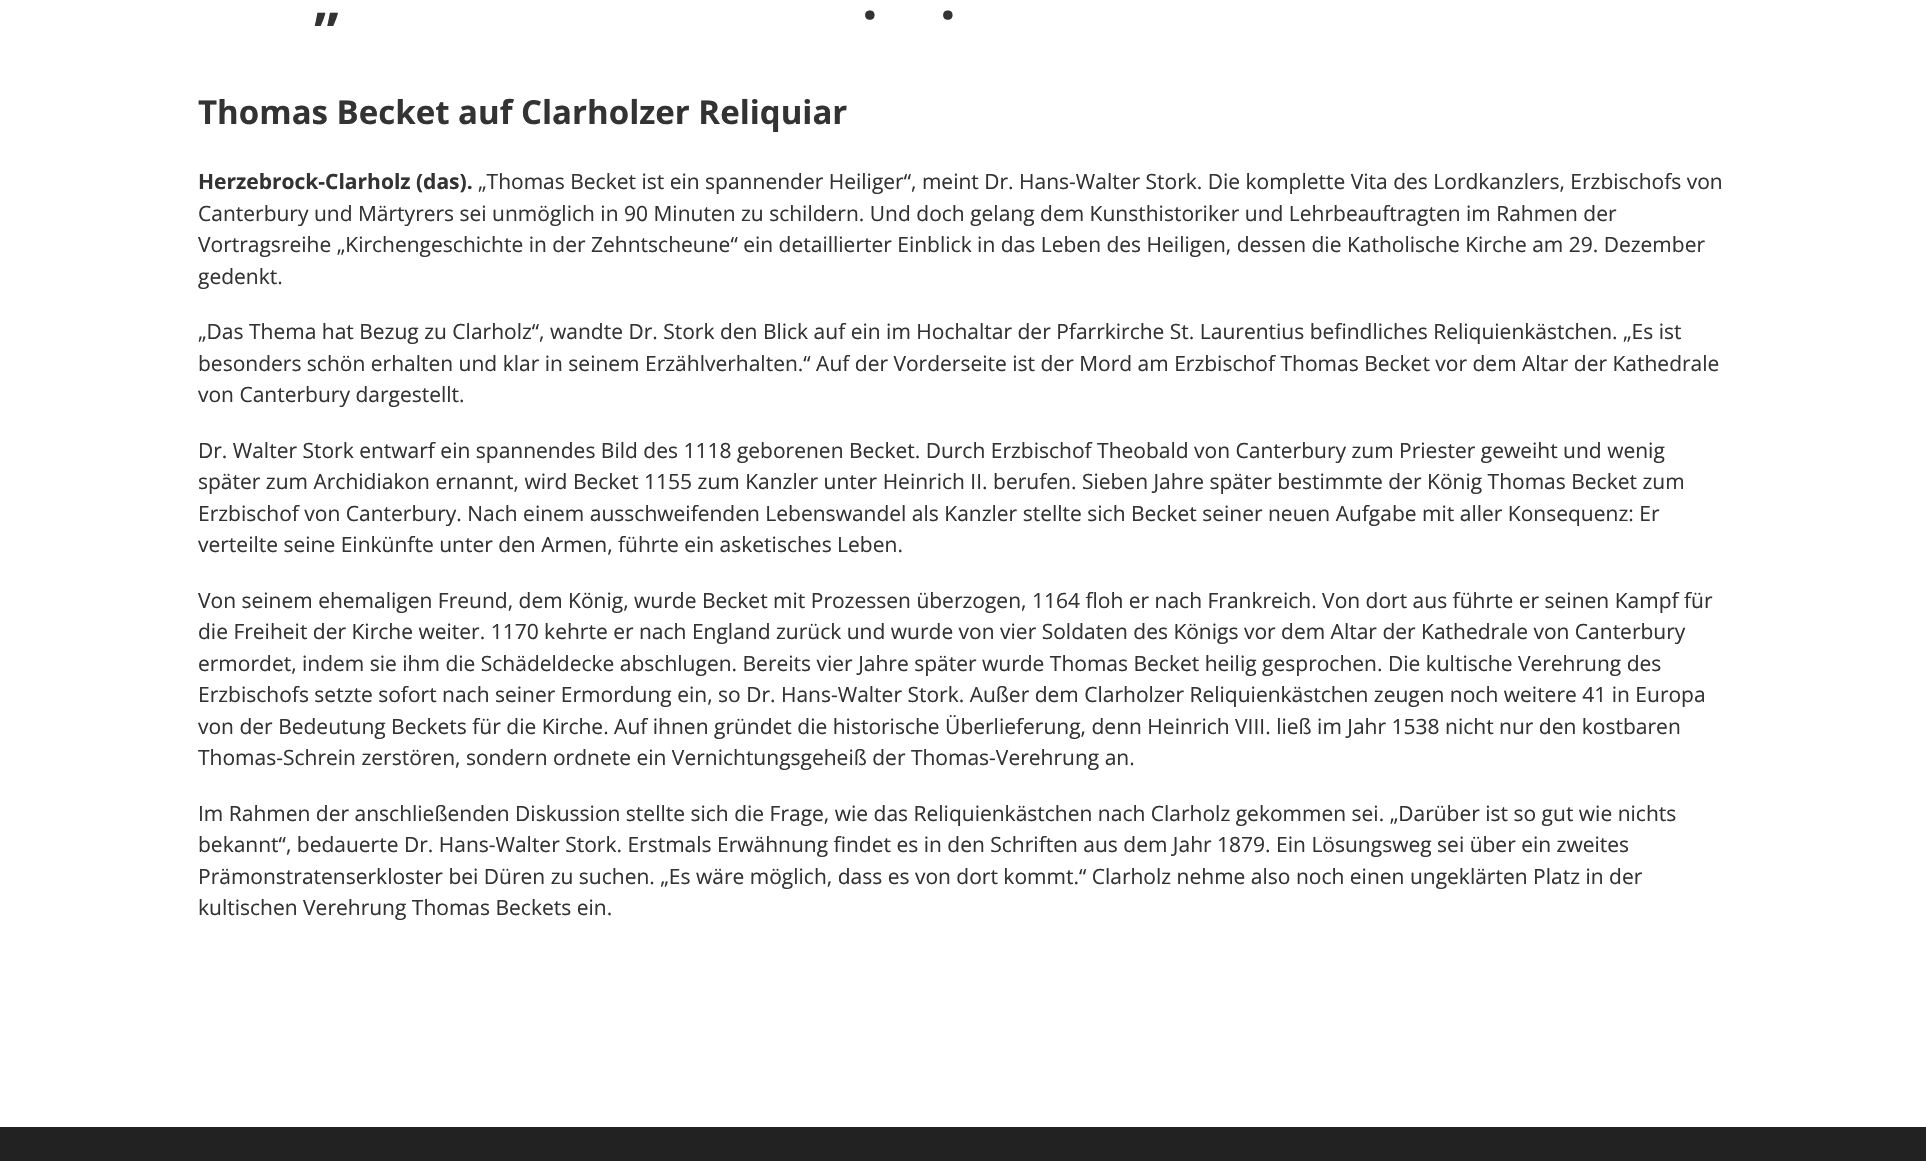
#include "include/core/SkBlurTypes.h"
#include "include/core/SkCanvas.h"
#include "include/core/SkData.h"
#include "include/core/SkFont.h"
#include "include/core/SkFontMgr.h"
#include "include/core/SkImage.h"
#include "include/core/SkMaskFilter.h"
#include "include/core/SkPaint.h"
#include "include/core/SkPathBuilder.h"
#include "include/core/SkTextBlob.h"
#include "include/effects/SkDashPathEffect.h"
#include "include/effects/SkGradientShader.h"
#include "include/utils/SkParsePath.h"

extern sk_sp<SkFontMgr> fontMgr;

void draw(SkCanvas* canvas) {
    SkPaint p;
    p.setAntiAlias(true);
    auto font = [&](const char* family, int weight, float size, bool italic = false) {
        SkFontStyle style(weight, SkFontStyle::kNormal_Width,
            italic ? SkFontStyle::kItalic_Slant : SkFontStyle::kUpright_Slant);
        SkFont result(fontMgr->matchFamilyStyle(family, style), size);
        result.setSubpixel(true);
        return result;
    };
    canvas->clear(0xFFFFFFFF);
    auto font1 = font("Open Sans", 700, 55);
    p.setColor(0xFF333333);
    {
        const struct { const char* s; float x, y; } items[] = {
            {"„", 313, 19},
            {".", 862, 19},
            {".", 940, 19},
        };
        for (auto [s, x, y] : items) {
            canvas->drawString(s, x, y, font1, p);
        }
    }
    auto font2 = font("Open Sans", 700, 33);
    canvas->drawString("Thomas Becket auf Clarholzer Reliquiar", 198, 124, font2, p);
    auto font3 = font("Open Sans", 700, 21);
    canvas->drawString("Herzebrock-Clarholz (das).", 198, 189, font3, p);
    auto font4 = font("Open Sans", 400, 21);
    {
        const struct { const char* s; float x, y; } items[] = {
            {"„Thomas Becket ist ein spannender Heiliger“, meint Dr. Hans-Walter Stork. Die komplette Vita des Lordkanzlers, Erzbischofs von", 478, 189},
            {"Canterbury und Märtyrers sei unmöglich in 90 Minuten zu schildern. Und doch gelang dem Kunsthistoriker und Lehrbeauftragten im Rahmen der", 198, 221},
            {"Vortragsreihe „Kirchengeschichte in der Zehntscheune“ ein detaillierter Einblick in das Leben des Heiligen, dessen die Katholische Kirche am 29. Dezember", 198, 252},
            {"gedenkt.", 198, 284},
            {"„Das Thema hat Bezug zu Clarholz“, wandte Dr. Stork den Blick auf ein im Hochaltar der Pfarrkirche St. Laurentius befindliches Reliquienkästchen. „Es ist", 198, 339},
            {"besonders schön erhalten und klar in seinem Erzählverhalten.“ Auf der Vorderseite ist der Mord am Erzbischof Thomas Becket vor dem Altar der Kathedrale", 198, 371},
            {"von Canterbury dargestellt.", 198, 402},
            {"Dr. Walter Stork entwarf ein spannendes Bild des 1118 geborenen Becket. Durch Erzbischof Theobald von Canterbury zum Priester geweiht und wenig", 198, 458},
            {"später zum Archidiakon ernannt, wird Becket 1155 zum Kanzler unter Heinrich II. berufen. Sieben Jahre später bestimmte der König Thomas Becket zum", 198, 489},
            {"Erzbischof von Canterbury. Nach einem ausschweifenden Lebenswandel als Kanzler stellte sich Becket seiner neuen Aufgabe mit aller Konsequenz: Er", 198, 521},
            {"verteilte seine Einkünfte unter den Armen, führte ein asketisches Leben.", 198, 552},
            {"Von seinem ehemaligen Freund, dem König, wurde Becket mit Prozessen überzogen, 1164 floh er nach Frankreich. Von dort aus führte er seinen Kampf für", 198, 608},
            {"die Freiheit der Kirche weiter. 1170 kehrte er nach England zurück und wurde von vier Soldaten des Königs vor dem Altar der Kathedrale von Canterbury", 198, 639},
            {"ermordet, indem sie ihm die Schädeldecke abschlugen. Bereits vier Jahre später wurde Thomas Becket heilig gesprochen. Die kultische Verehrung des", 198, 671},
            {"Erzbischofs setzte sofort nach seiner Ermordung ein, so Dr. Hans-Walter Stork. Außer dem Clarholzer Reliquienkästchen zeugen noch weitere 41 in Europa", 198, 702},
            {"von der Bedeutung Beckets für die Kirche. Auf ihnen gründet die historische Überlieferung, denn Heinrich VIII. ließ im Jahr 1538 nicht nur den kostbaren", 198, 734},
            {"Thomas-Schrein zerstören, sondern ordnete ein Vernichtungsgeheiß der Thomas-Verehrung an.", 198, 765},
            {"Im Rahmen der anschließenden Diskussion stellte sich die Frage, wie das Reliquienkästchen nach Clarholz gekommen sei. „Darüber ist so gut wie nichts", 198, 821},
            {"bekannt“, bedauerte Dr. Hans-Walter Stork. Erstmals Erwähnung findet es in den Schriften aus dem Jahr 1879. Ein Lösungsweg sei über ein zweites", 198, 852},
            {"Prämonstratenserkloster bei Düren zu suchen. „Es wäre möglich, dass es von dort kommt.“ Clarholz nehme also noch einen ungeklärten Platz in der", 198, 884},
            {"kultischen Verehrung Thomas Beckets ein.", 198, 915},
        };
        for (auto [s, x, y] : items) {
            canvas->drawString(s, x, y, font4, p);
        }
    }
    p.setColor(0xFF222222);
    canvas->drawRect(SkRect::MakeLTRB(0, 1127, 1926, 1161), p);
}
